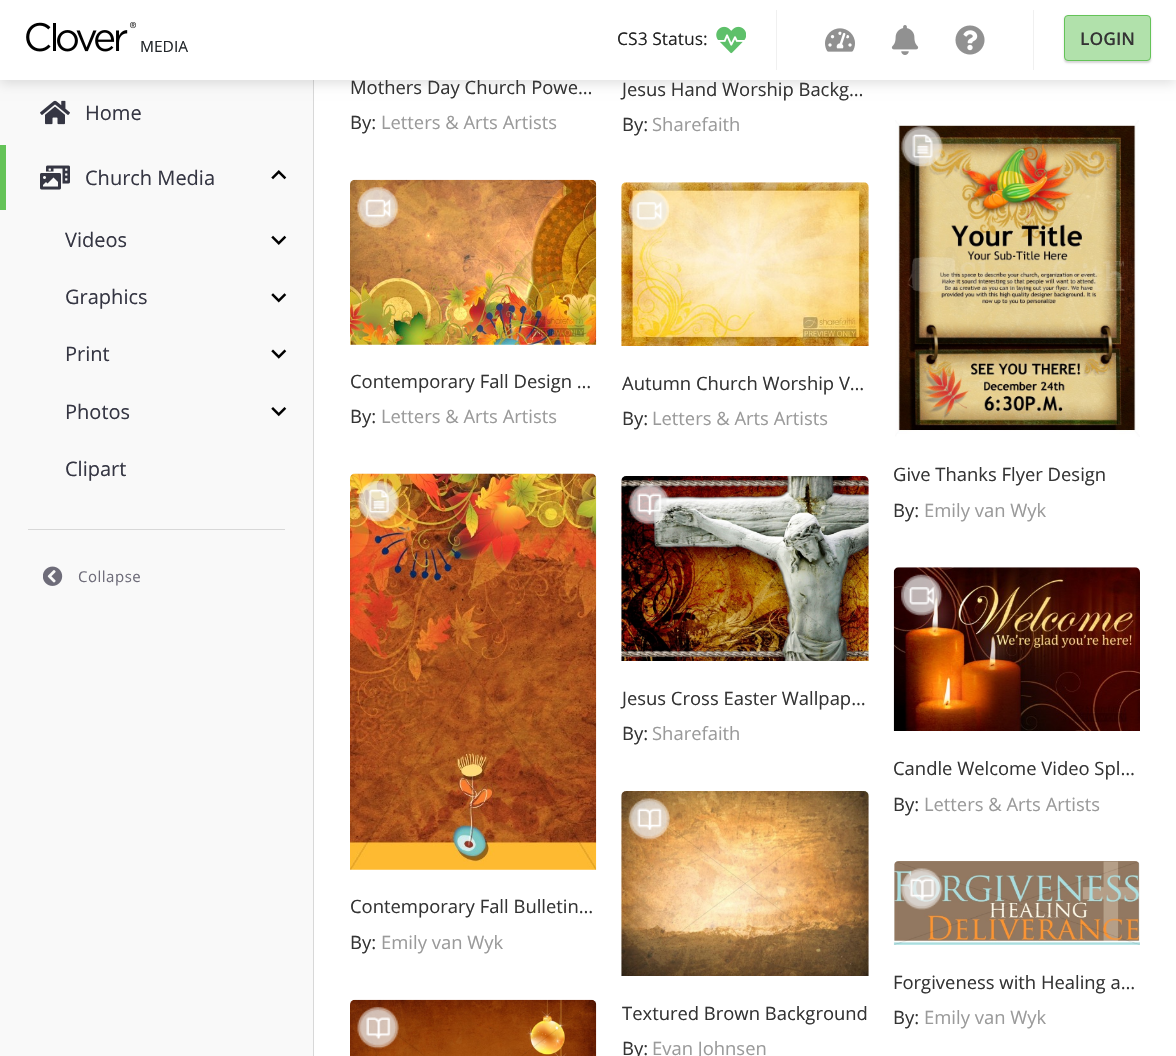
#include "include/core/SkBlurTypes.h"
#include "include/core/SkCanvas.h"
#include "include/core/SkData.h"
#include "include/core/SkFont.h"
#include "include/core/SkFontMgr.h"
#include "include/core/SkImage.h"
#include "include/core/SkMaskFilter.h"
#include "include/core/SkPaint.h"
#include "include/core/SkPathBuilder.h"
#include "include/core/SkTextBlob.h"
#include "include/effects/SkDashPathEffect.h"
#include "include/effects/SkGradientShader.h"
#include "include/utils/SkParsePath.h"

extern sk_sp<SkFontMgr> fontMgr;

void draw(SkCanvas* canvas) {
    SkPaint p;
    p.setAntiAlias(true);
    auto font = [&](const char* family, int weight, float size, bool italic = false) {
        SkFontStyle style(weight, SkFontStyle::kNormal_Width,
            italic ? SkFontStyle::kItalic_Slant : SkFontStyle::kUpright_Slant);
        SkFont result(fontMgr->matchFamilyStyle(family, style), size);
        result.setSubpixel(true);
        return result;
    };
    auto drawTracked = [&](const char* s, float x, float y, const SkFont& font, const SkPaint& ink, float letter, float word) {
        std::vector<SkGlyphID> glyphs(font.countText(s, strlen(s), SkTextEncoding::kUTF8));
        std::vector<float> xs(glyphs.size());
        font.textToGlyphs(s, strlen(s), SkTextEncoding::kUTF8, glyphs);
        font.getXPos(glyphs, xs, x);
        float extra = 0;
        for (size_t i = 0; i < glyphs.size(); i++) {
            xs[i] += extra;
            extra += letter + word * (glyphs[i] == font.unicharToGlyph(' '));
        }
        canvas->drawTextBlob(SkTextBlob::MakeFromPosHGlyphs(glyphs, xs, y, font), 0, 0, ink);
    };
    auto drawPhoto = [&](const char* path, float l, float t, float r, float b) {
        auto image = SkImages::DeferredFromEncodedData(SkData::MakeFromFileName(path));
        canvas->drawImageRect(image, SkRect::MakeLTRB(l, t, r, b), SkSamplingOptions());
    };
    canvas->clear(0xFFFFFFFF);
    p.setColor(0xFFF9F9F9);
    canvas->drawRect(SkRect::MakeLTRB(0, 80, 313, 1056), p);
    p.setColor(0xFFD8D8D8);
    canvas->drawRect(SkRect::MakeLTRB(313, 80, 314, 1056), p);
    drawPhoto("media/6.png", 40, 100, 70, 125);
    p.setColor(0x21000000);
    p.setMaskFilter(SkMaskFilter::MakeBlur(kNormal_SkBlurStyle, 6));
    canvas->drawRect(SkRect::MakeLTRB(0, 3, 1176, 83), p);
    p.setMaskFilter(nullptr);
    p.setColor(0xFFFFFFFF);
    canvas->drawRect(SkRect::MakeLTRB(0, 0, 1176, 80), p);
    drawPhoto("media/1.png", 26, 22, 136, 52);
    auto font1 = font("Open Sans", 400, 15.5f);
    p.setColor(0xFF212529);
    canvas->drawString("MEDIA", 140, 52, font1, p);
    auto font2 = font("Open Sans", 400, 17.5f);
    p.setColor(0xFF232323);
    canvas->drawString("CS3 Status:", 617, 45, font2, p);
    drawPhoto("media/2.png", 716, 26, 746, 54);
    p.setColor(0xFFF0F0F0);
    canvas->drawRect(SkRect::MakeLTRB(776, 10, 777, 70), p);
    drawPhoto("media/3.png", 825, 28, 855, 52);
    drawPhoto("media/4.png", 891, 25, 919, 55);
    drawPhoto("media/5.png", 955, 25, 985, 55);
    canvas->drawRect(SkRect::MakeLTRB(1033, 10, 1034, 70), p);
    p.setColor(0x29000000);
    p.setMaskFilter(SkMaskFilter::MakeBlur(kNormal_SkBlurStyle, 1));
    canvas->drawRoundRect(SkRect::MakeLTRB(1064, 16, 1151, 63), 4, 4, p);
    p.setMaskFilter(nullptr);
    p.setColor(0xFFB1E1AB);
    canvas->drawRoundRect(SkRect::MakeLTRB(1064.5f, 15.5f, 1150.5f, 60.5f), 3.5f, 3.5f, p);
    p.setStyle(SkPaint::kStroke_Style);
    p.setStrokeWidth(1);
    p.setColor(0xFF64C358);
    canvas->drawRoundRect(SkRect::MakeLTRB(1064.5f, 15.5f, 1150.5f, 60.5f), 3.5f, 3.5f, p);
    auto font3 = font("Open Sans", 600, 17.5f);
    p.setStyle(SkPaint::kFill_Style);
    p.setColor(0xFF343434);
    canvas->drawString("LOGIN", 1080, 45, font3, p);
    auto font4 = font("Open Sans", 400, 20);
    p.setColor(0xFF353643);
    canvas->drawString("Home", 85, 120, font4, p);
    p.setColor(0xFF64C358);
    canvas->drawRect(SkRect::MakeLTRB(0, 145, 6, 210), p);
    drawPhoto("media/7.png", 40, 165, 70, 190);
    p.setColor(0xFF353643);
    canvas->drawString("Church Media", 85, 185, font4, p);
    drawPhoto("media/8.png", 271, 170, 287, 180);
    canvas->drawString("Videos", 65, 247, font4, p);
    drawPhoto("media/9.png", 271, 235, 287, 245);
    canvas->drawString("Graphics", 65, 304, font4, p);
    drawPhoto("media/10.png", 271, 293, 287, 303);
    canvas->drawString("Print", 65, 361, font4, p);
    drawPhoto("media/11.png", 271, 349, 287, 359);
    canvas->drawString("Photos", 65, 419, font4, p);
    drawPhoto("media/12.png", 271, 407, 287, 417);
    canvas->drawString("Clipart", 65, 476, font4, p);
    p.setColor(0xFFD8D8D8);
    canvas->drawRect(SkRect::MakeLTRB(28, 529, 285, 530), p);
    drawPhoto("media/13.png", 43, 566, 63, 586);
    auto font5 = font("Open Sans", 400, 15);
    p.setColor(0xFF6E6C79);
    drawTracked("Collapse", 78, 582, font5, p, 0.5f, 0);
    auto font6 = font("Open Sans", 400, 18.4f);
    p.setColor(0xFF343434);
    canvas->drawString("Mothers Day Church Powe…", 350, 94, font6, p);
    canvas->drawString("By:", 350, 129, font6, p);
    p.setColor(0xFF9A9A9A);
    canvas->drawString("Letters & Arts Artists", 381, 129, font6, p);
    p.setColor(0xFF343434);
    canvas->drawString("Jesus Hand Worship Backg…", 622, 96, font6, p);
    canvas->drawString("By:", 622, 131, font6, p);
    p.setColor(0xFF9A9A9A);
    canvas->drawString("Sharefaith", 652, 131, font6, p);
    drawPhoto("media/15.png", 350, 179, 597, 345);
    drawPhoto("media/14.png", 357, 187, 399, 229);
    p.setColor(0xFF343434);
    canvas->drawString("Contemporary Fall Design …", 350, 388, font6, p);
    canvas->drawString("By:", 350, 423, font6, p);
    p.setColor(0xFF9A9A9A);
    canvas->drawString("Letters & Arts Artists", 381, 423, font6, p);
    drawPhoto("media/17.png", 621, 182, 869, 346);
    drawPhoto("media/16.png", 628, 189, 670, 231);
    p.setColor(0xFF343434);
    canvas->drawString("Autumn Church Worship V…", 622, 390, font6, p);
    canvas->drawString("By:", 622, 425, font6, p);
    p.setColor(0xFF9A9A9A);
    canvas->drawString("Letters & Arts Artists", 652, 425, font6, p);
    drawPhoto("media/19.png", 895, 120, 1140, 437);
    drawPhoto("media/18.png", 901, 126, 943, 168);
    p.setColor(0xFF343434);
    canvas->drawString("Give Thanks Flyer Design", 893, 481, font6, p);
    canvas->drawString("By:", 893, 517, font6, p);
    p.setColor(0xFF9A9A9A);
    canvas->drawString("Emily van Wyk", 924, 517, font6, p);
    drawPhoto("media/21.png", 621, 476, 869, 661);
    drawPhoto("media/20.png", 628, 483, 670, 525);
    p.setColor(0xFF343434);
    canvas->drawString("Jesus Cross Easter Wallpap…", 622, 705, font6, p);
    canvas->drawString("By:", 622, 740, font6, p);
    p.setColor(0xFF9A9A9A);
    canvas->drawString("Sharefaith", 652, 740, font6, p);
    drawPhoto("media/23.png", 893, 567, 1140, 731);
    drawPhoto("media/22.png", 901, 574, 943, 616);
    p.setColor(0xFF343434);
    canvas->drawString("Candle Welcome Video Spl…", 893, 775, font6, p);
    canvas->drawString("By:", 893, 811, font6, p);
    p.setColor(0xFF9A9A9A);
    canvas->drawString("Letters & Arts Artists", 924, 811, font6, p);
    drawPhoto("media/25.png", 350, 473, 597, 870);
    drawPhoto("media/24.png", 357, 481, 399, 523);
    p.setColor(0xFF343434);
    canvas->drawString("Contemporary Fall Bulletin…", 350, 913, font6, p);
    canvas->drawString("By:", 350, 949, font6, p);
    p.setColor(0xFF9A9A9A);
    canvas->drawString("Emily van Wyk", 381, 949, font6, p);
    drawPhoto("media/26.png", 350, 999, 597, 1056);
    drawPhoto("media/27.png", 357, 1007, 399, 1049);
    drawPhoto("media/29.png", 621, 791, 869, 976);
    drawPhoto("media/28.png", 628, 798, 670, 840);
    p.setColor(0xFF343434);
    canvas->drawString("Textured Brown Background", 622, 1020, font6, p);
    canvas->drawString("By:", 622, 1055, font6, p);
    p.setColor(0xFF9A9A9A);
    canvas->drawString("Evan Johnsen", 652, 1055, font6, p);
    drawPhoto("media/31.png", 893, 861, 1140, 945);
    drawPhoto("media/30.png", 901, 868, 943, 910);
    p.setColor(0xFF343434);
    canvas->drawString("Forgiveness with Healing a…", 893, 989, font6, p);
    canvas->drawString("By:", 893, 1024, font6, p);
    p.setColor(0xFF9A9A9A);
    canvas->drawString("Emily van Wyk", 924, 1024, font6, p);
}
